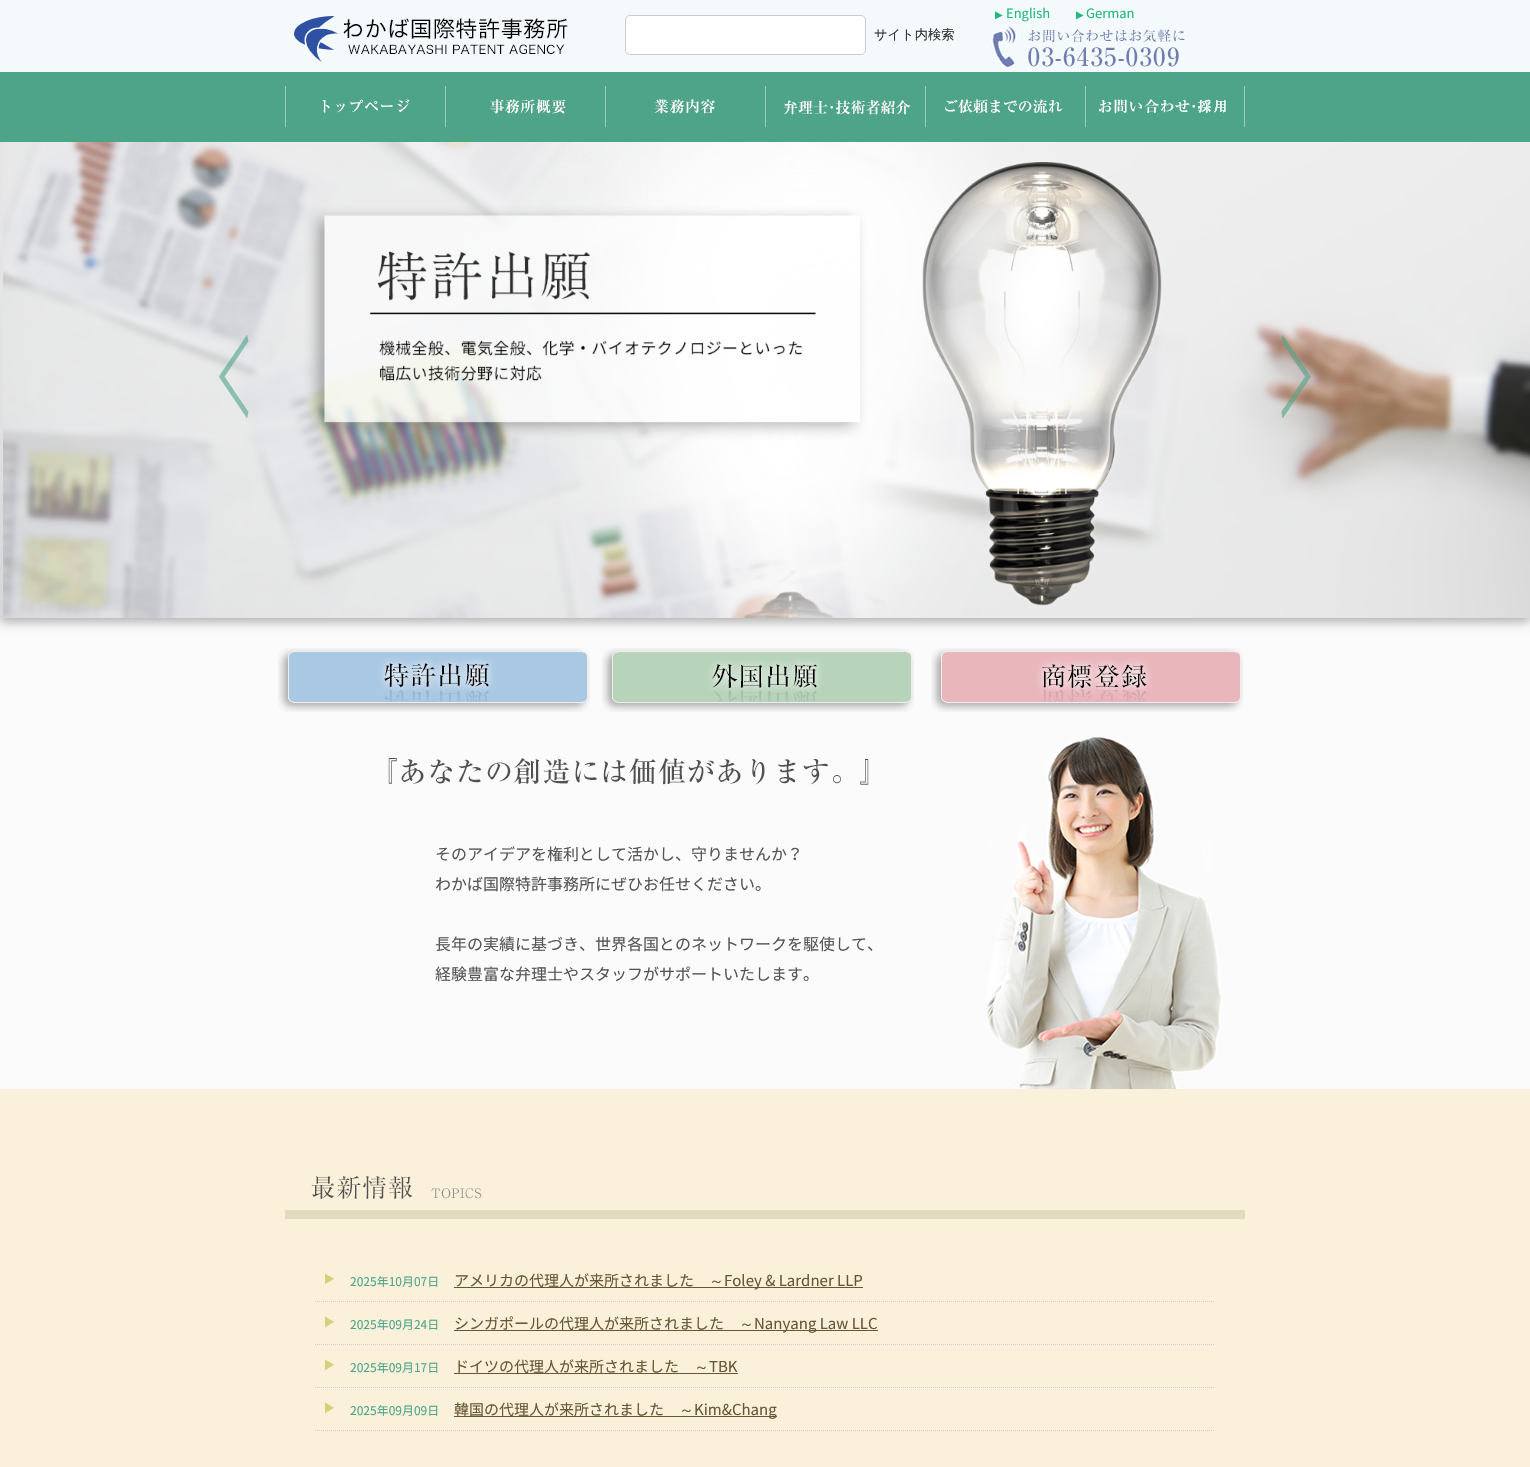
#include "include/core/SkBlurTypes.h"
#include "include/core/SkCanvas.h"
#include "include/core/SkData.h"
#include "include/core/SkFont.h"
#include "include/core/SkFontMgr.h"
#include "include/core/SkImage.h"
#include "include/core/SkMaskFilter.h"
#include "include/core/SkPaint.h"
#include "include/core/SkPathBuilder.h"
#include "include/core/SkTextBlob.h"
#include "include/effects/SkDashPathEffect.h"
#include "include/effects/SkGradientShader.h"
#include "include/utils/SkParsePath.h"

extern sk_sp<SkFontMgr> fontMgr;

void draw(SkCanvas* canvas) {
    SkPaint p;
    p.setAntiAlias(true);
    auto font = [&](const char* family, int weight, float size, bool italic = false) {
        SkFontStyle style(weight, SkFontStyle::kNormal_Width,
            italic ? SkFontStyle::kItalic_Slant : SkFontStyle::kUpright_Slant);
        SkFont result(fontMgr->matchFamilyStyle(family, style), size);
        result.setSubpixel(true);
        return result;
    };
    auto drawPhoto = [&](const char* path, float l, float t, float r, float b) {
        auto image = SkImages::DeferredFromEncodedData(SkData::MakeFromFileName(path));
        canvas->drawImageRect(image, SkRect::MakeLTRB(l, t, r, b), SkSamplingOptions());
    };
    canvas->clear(0xFFF4F9FC);
    auto font1 = font("DejaVu Sans", 400, 10);
    p.setColor(0xFF20B97B);
    canvas->drawString("▶", 995, 18, font1, p);
    auto font2 = font("Noto Sans JP", 400, 13);
    canvas->drawString("English", 1006, 18, font2, p);
    canvas->drawString("▶", 1076, 18, font1, p);
    canvas->drawString("German", 1086, 18, font2, p);
    drawPhoto("media/1.png", 975, 25, 1205, 72);
    drawPhoto("media/2.png", 294, 16, 568, 62);
    p.setColor(0xFFFFFFFF);
    canvas->drawRoundRect(SkRect::MakeLTRB(625.5f, 15.5f, 865.5f, 54.5f), 4.5f, 4.5f, p);
    p.setStyle(SkPaint::kStroke_Style);
    p.setStrokeWidth(1);
    p.setColor(0xFFCCCCCC);
    canvas->drawRoundRect(SkRect::MakeLTRB(625.5f, 15.5f, 865.5f, 54.5f), 4.5f, 4.5f, p);
    auto font3 = font("WenQuanYi Zen Hei", 500, 13.25f);
    p.setStyle(SkPaint::kFill_Style);
    p.setColor(0xFF333333);
    canvas->drawString("サイト内検索", 874, 39, font3, p);
    p.setColor(0xFFFBFBFB);
    canvas->drawRect(SkRect::MakeLTRB(0, 617, 1530, 1089), p);
    p.setColor(0x4D000000);
    p.setMaskFilter(SkMaskFilter::MakeBlur(kNormal_SkBlurStyle, 5));
    canvas->drawRect(SkRect::MakeLTRB(0, 146, 1530, 622), p);
    p.setMaskFilter(nullptr);
    p.setColor(0xFF4EA489);
    canvas->drawRect(SkRect::MakeLTRB(0, 72, 1530, 142), p);
    drawPhoto("media/3.png", 285, 72, 445, 142);
    drawPhoto("media/4.png", 445, 72, 605, 142);
    drawPhoto("media/5.png", 605, 72, 765, 142);
    drawPhoto("media/6.png", 765, 72, 925, 142);
    drawPhoto("media/7.png", 925, 72, 1085, 142);
    drawPhoto("media/8.png", 1085, 72, 1245, 142);
    drawPhoto("media/9.png", 0, 142, 1530, 618);
    drawPhoto("media/10.png", 219, 335, 249, 419);
    drawPhoto("media/11.png", 1281, 335, 1311, 419);
    drawPhoto("media/12.png", 278, 648, 590, 712);
    drawPhoto("media/13.png", 602, 648, 914, 712);
    drawPhoto("media/14.png", 931, 648, 1243, 712);
    drawPhoto("media/15.png", 987, 737, 1221, 1089);
    drawPhoto("media/16.png", 388, 758, 869, 785);
    auto font4 = font("Noto Sans JP", 400, 16);
    p.setColor(0xFF555555);
    {
        const struct { const char* s; float x, y; } items[] = {
            {"そのアイデアを権利として活かし、守りませんか？", 435, 860},
            {"わかば国際特許事務所にぜひお任せください。", 435, 890},
            {"長年の実績に基づき、世界各国とのネットワークを駆使して、", 435, 950},
            {"経験豊富な弁理士やスタッフがサポートいたします。", 435, 980},
        };
        for (auto [s, x, y] : items) {
            canvas->drawString(s, x, y, font4, p);
        }
    }
    p.setColor(0xFFFBF1DA);
    canvas->drawRect(SkRect::MakeLTRB(0, 1089, 1530, 1467), p);
    drawPhoto("media/17.png", 285, 1176, 1245, 1219);
    drawPhoto("media/18.png", 325, 1273, 334, 1285);
    p.setStyle(SkPaint::kStroke_Style);
    p.setColor(0xFFCCCCCC);
    p.setPathEffect(SkDashPathEffect::Make({{1, 1}}, 0));
    canvas->drawPath(SkPathBuilder().moveTo(315, 1301.5f).lineTo(1215, 1301.5f).detach(), p);
    p.setPathEffect(nullptr);
    auto font5 = font("Noto Sans JP", 400, 12);
    p.setStyle(SkPaint::kFill_Style);
    p.setColor(0xFF4EA489);
    canvas->drawString("2025年10月07日", 350, 1286, font5, p);
    p.setColor(0xFF665735);
    canvas->drawRect(SkRect::MakeLTRB(454, 1287, 863, 1288), p);
    auto font6 = font("Noto Sans JP", 400, 15);
    canvas->drawString("アメリカの代理人が来所されました", 454, 1286, font6, p);
    auto font7 = font("WenQuanYi Zen Hei", 500, 15);
    canvas->drawString("～", 709, 1286, font7, p);
    canvas->drawString("Foley & Lardner LLP", 724, 1286, font6, p);
    drawPhoto("media/18.png", 325, 1316, 334, 1328);
    p.setStyle(SkPaint::kStroke_Style);
    p.setColor(0xFFCCCCCC);
    p.setPathEffect(SkDashPathEffect::Make({{1, 1}}, 0));
    canvas->drawPath(SkPathBuilder().moveTo(315, 1344.5f).lineTo(1215, 1344.5f).detach(), p);
    p.setPathEffect(nullptr);
    p.setStyle(SkPaint::kFill_Style);
    p.setColor(0xFF4EA489);
    canvas->drawString("2025年09月24日", 350, 1329, font5, p);
    p.setColor(0xFF665735);
    canvas->drawRect(SkRect::MakeLTRB(454, 1330, 878, 1331), p);
    canvas->drawString("シンガポールの代理人が来所されました", 454, 1329, font6, p);
    canvas->drawString("～", 739, 1329, font7, p);
    canvas->drawString("Nanyang Law LLC", 754, 1329, font6, p);
    drawPhoto("media/18.png", 325, 1359, 334, 1371);
    p.setStyle(SkPaint::kStroke_Style);
    p.setColor(0xFFCCCCCC);
    p.setPathEffect(SkDashPathEffect::Make({{1, 1}}, 0));
    canvas->drawPath(SkPathBuilder().moveTo(315, 1387.5f).lineTo(1215, 1387.5f).detach(), p);
    p.setPathEffect(nullptr);
    p.setStyle(SkPaint::kFill_Style);
    p.setColor(0xFF4EA489);
    canvas->drawString("2025年09月17日", 350, 1372, font5, p);
    p.setColor(0xFF665735);
    canvas->drawRect(SkRect::MakeLTRB(454, 1373, 738, 1374), p);
    canvas->drawString("ドイツの代理人が来所されました", 454, 1372, font6, p);
    canvas->drawString("～", 694, 1372, font7, p);
    canvas->drawString("TBK", 709, 1372, font6, p);
    drawPhoto("media/18.png", 325, 1402, 334, 1414);
    p.setStyle(SkPaint::kStroke_Style);
    p.setColor(0xFFCCCCCC);
    p.setPathEffect(SkDashPathEffect::Make({{1, 1}}, 0));
    canvas->drawPath(SkPathBuilder().moveTo(315, 1430.5f).lineTo(1215, 1430.5f).detach(), p);
    p.setPathEffect(nullptr);
    p.setStyle(SkPaint::kFill_Style);
    p.setColor(0xFF4EA489);
    canvas->drawString("2025年09月09日", 350, 1415, font5, p);
    p.setColor(0xFF665735);
    canvas->drawRect(SkRect::MakeLTRB(454, 1416, 777, 1417), p);
    canvas->drawString("韓国の代理人が来所されました", 454, 1415, font6, p);
    canvas->drawString("～", 679, 1415, font7, p);
    canvas->drawString("Kim&Chang", 694, 1415, font6, p);
}
